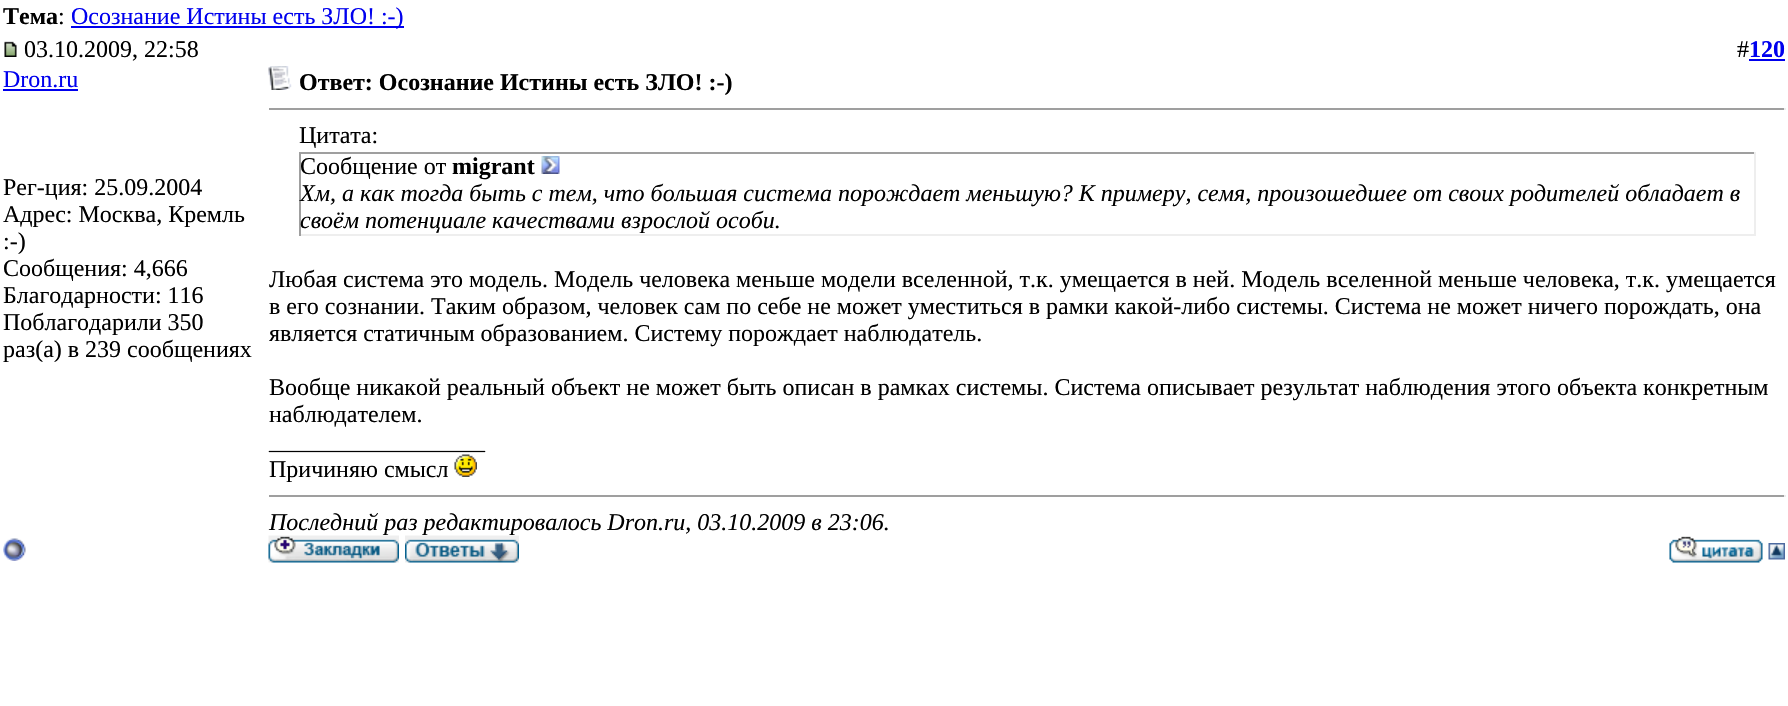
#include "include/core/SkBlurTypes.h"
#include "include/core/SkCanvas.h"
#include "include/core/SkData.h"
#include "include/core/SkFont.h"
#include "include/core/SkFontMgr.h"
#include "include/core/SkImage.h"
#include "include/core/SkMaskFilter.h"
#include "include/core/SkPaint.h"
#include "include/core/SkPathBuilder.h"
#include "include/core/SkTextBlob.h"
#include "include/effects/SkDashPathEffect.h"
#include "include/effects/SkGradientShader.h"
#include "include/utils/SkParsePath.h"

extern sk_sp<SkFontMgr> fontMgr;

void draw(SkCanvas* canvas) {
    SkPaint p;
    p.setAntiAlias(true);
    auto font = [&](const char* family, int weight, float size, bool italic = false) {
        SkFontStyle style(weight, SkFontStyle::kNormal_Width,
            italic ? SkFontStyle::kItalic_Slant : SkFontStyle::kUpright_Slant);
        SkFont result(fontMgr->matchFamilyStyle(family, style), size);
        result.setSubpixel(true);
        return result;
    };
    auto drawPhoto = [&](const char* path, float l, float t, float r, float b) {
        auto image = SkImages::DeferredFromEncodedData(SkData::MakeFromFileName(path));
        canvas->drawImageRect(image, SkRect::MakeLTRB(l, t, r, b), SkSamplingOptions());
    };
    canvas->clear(0xFFFFFFFF);
    auto font1 = font("Liberation Serif", 700, 24);
    p.setColor(0xFF000000);
    canvas->drawString("Тема", 3, 24, font1, p);
    auto font2 = font("Liberation Serif", 400, 24);
    canvas->drawString(":", 58, 24, font2, p);
    p.setColor(0xFF0000EE);
    canvas->drawRect(SkRect::MakeLTRB(71, 26, 404, 28), p);
    canvas->drawString("Осознание Истины есть ЗЛО! :-)", 71, 24, font2, p);
    drawPhoto("media/1.png", 4, 41, 17, 57);
    p.setColor(0xFF000000);
    canvas->drawString("03.10.2009, 22:58", 24, 57, font2, p);
    canvas->drawString("#", 1737, 57, font2, p);
    p.setColor(0xFF0000EE);
    canvas->drawString("120", 1749, 57, font1, p);
    canvas->drawRect(SkRect::MakeLTRB(1749, 59, 1785, 61), p);
    canvas->drawString("Dron.ru", 3, 87, font2, p);
    canvas->drawRect(SkRect::MakeLTRB(3, 89, 78, 91), p);
    p.setColor(0xFF000000);
    {
        const struct { const char* s; float x, y; } items[] = {
            {"Рег-ция: 25.09.2004", 3, 195},
            {"Адрес: Москва, Кремль", 3, 222},
            {":-)", 3, 249},
            {"Сообщения: 4,666", 3, 276},
            {"Благодарности: 116", 3, 303},
            {"Поблагодарили 350", 3, 330},
            {"раз(а) в 239 сообщениях", 3, 357},
        };
        for (auto [s, x, y] : items) {
            canvas->drawString(s, x, y, font2, p);
        }
    }
    drawPhoto("media/2.png", 268, 66, 292, 90);
    canvas->drawString("Ответ: Осознание Истины есть ЗЛО! :-)", 299, 90, font1, p);
    p.setColor(0xFF9F9F9F);
    canvas->drawRect(SkRect::MakeLTRB(269, 108, 1785, 110), p);
    p.setColor(0xFFEEEEEE);
    canvas->drawRect(SkRect::MakeLTRB(1784, 108, 1786, 110), p);
    p.setColor(0xFF000000);
    canvas->drawString("Цитата:", 299, 143, font2, p);
    {
        const struct { float l, t, r, b; SkColor color; } items[] = {
            {299, 152, 1755, 154, 0xFF9F9F9F},
            {1754, 152, 1756, 236, 0xFFEEEEEE},
            {299, 234, 1755, 236, 0xFFEEEEEE},
            {299, 152, 301, 236, 0xFF9F9F9F},
        };
        for (auto [l, t, r, b, color] : items) {
            p.setColor(color);
            canvas->drawRect(SkRect::MakeLTRB(l, t, r, b), p);
        }
    }
    p.setColor(0xFF000000);
    canvas->drawString("Сообщение от", 300, 174, font2, p);
    canvas->drawString("migrant", 452, 174, font1, p);
    drawPhoto("media/3.png", 541, 156, 560, 174);
    auto font3 = font("Liberation Serif", 400, 24, true);
    canvas->drawString("Хм, а как тогда быть с тем, что большая система порождает меньшую? К примеру, семя, произошедшее от своих родителей обладает в", 300, 201, font3, p);
    canvas->drawString("своём потенциале качествами взрослой особи.", 300, 228, font3, p);
    {
        const struct { const char* s; float x, y; } items[] = {
            {"Любая система это модель. Модель человека меньше модели вселенной, т.к. умещается в ней. Модель вселенной меньше человека, т.к. умещается", 269, 287},
            {"в его сознании. Таким образом, человек сам по себе не может уместиться в рамки какой-либо системы. Система не может ничего порождать, она", 269, 314},
            {"является статичным образованием. Систему порождает наблюдатель.", 269, 341},
            {"Вообще никакой реальный объект не может быть описан в рамках системы. Система описывает результат наблюдения этого объекта конкретным", 269, 395},
            {"наблюдателем.", 269, 422},
            {"__________________", 269, 449},
            {"Причиняю смысл", 269, 477},
        };
        for (auto [s, x, y] : items) {
            canvas->drawString(s, x, y, font2, p);
        }
    }
    drawPhoto("media/4.png", 454, 454, 477, 477);
    p.setColor(0xFF9F9F9F);
    canvas->drawRect(SkRect::MakeLTRB(269, 495, 1785, 497), p);
    p.setColor(0xFFEEEEEE);
    canvas->drawRect(SkRect::MakeLTRB(1784, 495, 1786, 497), p);
    p.setColor(0xFF000000);
    canvas->drawString("Последний раз редактировалось Dron.ru, 03.10.2009 в 23:06.", 269, 530, font3, p);
    drawPhoto("media/5.png", 3, 538, 26, 561);
    drawPhoto("media/6.png", 268, 535, 399, 563);
    drawPhoto("media/7.png", 405, 535, 519, 563);
    drawPhoto("media/8.png", 1669, 536, 1763, 563);
    drawPhoto("media/9.png", 1768, 543, 1785, 560);
}
